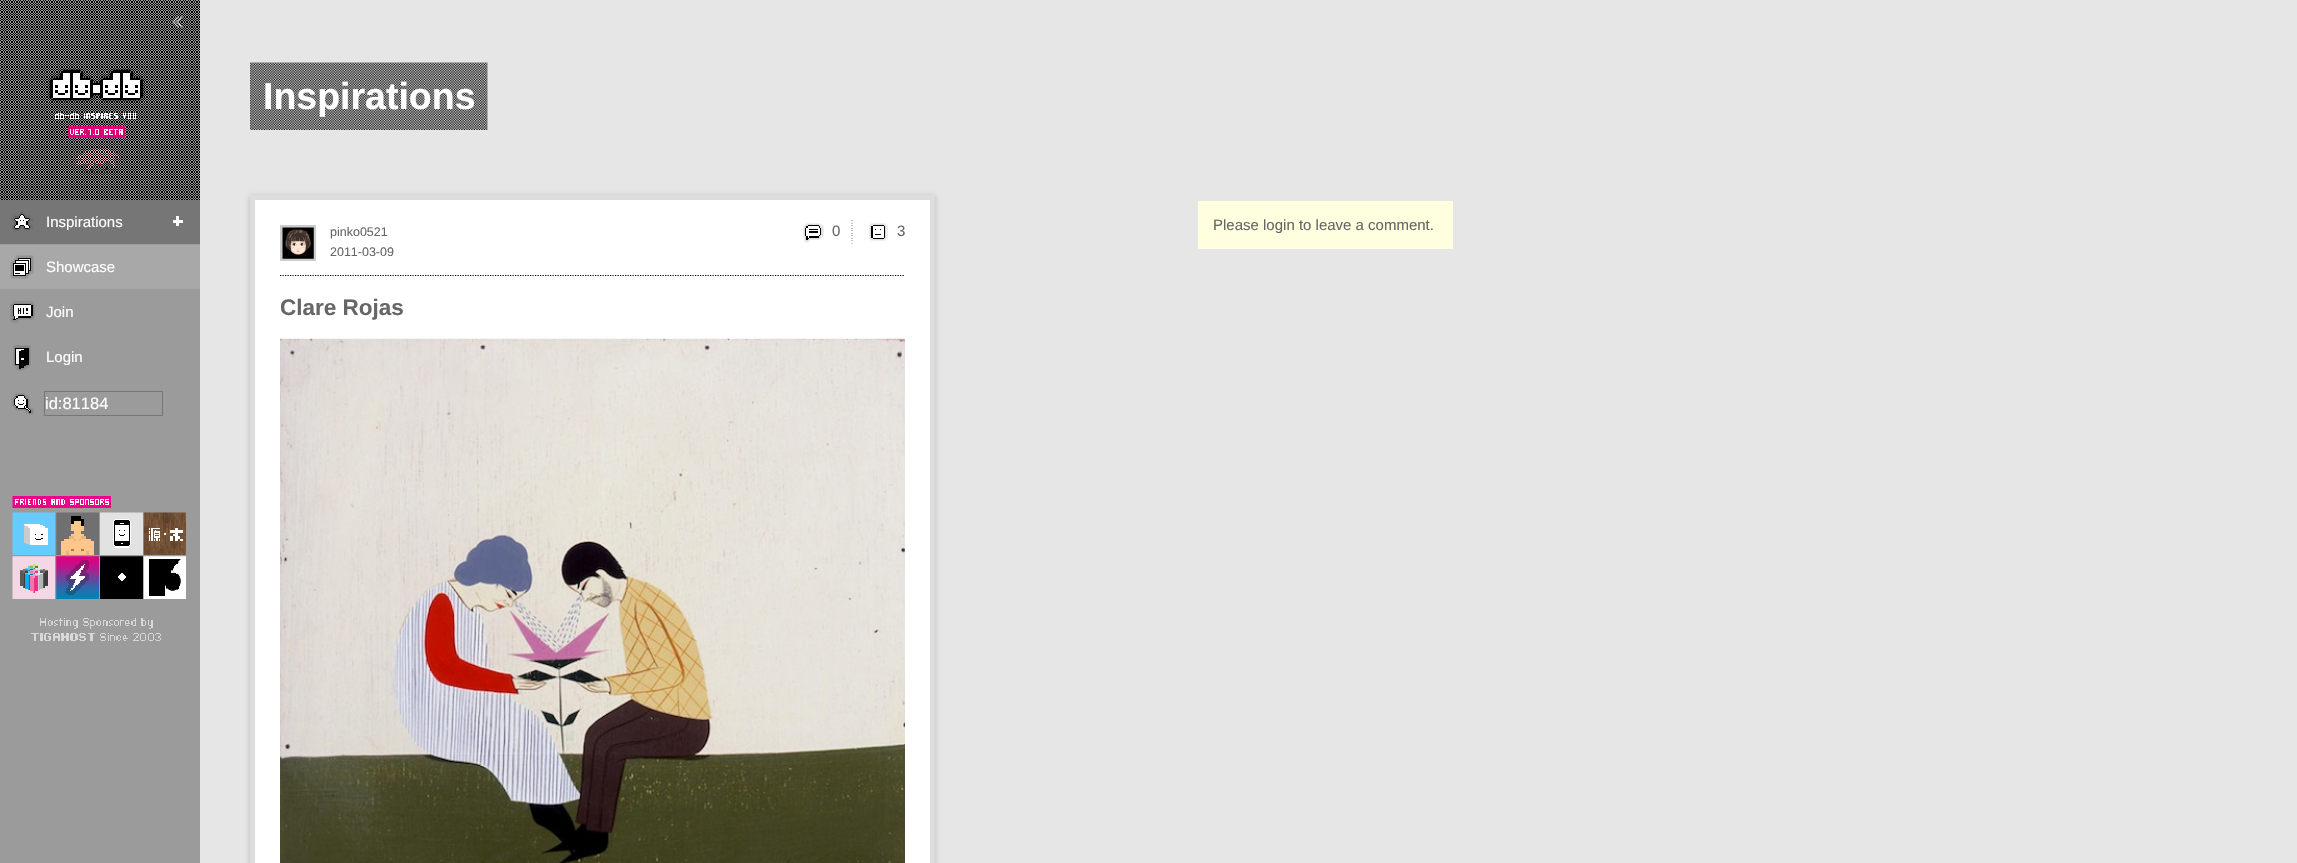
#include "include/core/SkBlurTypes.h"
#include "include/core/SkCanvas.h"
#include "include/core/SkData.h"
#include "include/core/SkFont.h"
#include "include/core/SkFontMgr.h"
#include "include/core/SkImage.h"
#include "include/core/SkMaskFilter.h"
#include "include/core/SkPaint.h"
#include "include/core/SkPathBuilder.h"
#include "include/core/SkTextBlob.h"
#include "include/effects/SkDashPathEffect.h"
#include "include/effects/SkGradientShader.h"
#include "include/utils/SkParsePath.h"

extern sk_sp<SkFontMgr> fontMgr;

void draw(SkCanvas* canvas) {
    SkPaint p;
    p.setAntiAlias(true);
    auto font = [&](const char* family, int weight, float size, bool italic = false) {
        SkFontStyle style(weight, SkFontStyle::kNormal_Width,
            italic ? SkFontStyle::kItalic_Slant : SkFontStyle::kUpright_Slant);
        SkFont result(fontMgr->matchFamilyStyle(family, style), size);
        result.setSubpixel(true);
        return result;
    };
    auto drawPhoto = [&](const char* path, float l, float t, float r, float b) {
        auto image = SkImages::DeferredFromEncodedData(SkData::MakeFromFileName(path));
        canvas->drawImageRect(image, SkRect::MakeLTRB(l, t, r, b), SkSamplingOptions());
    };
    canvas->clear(0xFFE6E6E6);
    drawPhoto("media/1.png", 250, 62, 488, 130);
    auto font1 = font("Liberation Sans", 700, 37.5f);
    p.setColor(0xFFFFFFFF);
    canvas->drawString("Inspirations", 263, 109, font1, p);
    p.setColor(0xFF9B9B9B);
    canvas->drawRect(SkRect::MakeLTRB(0, 0, 200, 863), p);
    drawPhoto("media/15.png", 75, 149, 119, 174);
    drawPhoto("media/2.png", 0, 0, 200, 200);
    drawPhoto("media/3.png", 48, 68, 145, 103);
    drawPhoto("media/4.png", 170, 14, 185, 30);
    drawPhoto("media/5.png", 12, 496, 111, 508);
    drawPhoto("media/6.png", 12, 512, 55, 555);
    drawPhoto("media/7.png", 56, 512, 99, 555);
    drawPhoto("media/8.png", 100, 512, 143, 555);
    drawPhoto("media/9.png", 143, 512, 186, 555);
    drawPhoto("media/10.png", 12, 556, 55, 599);
    drawPhoto("media/11.png", 56, 556, 99, 599);
    drawPhoto("media/12.png", 100, 556, 143, 599);
    drawPhoto("media/13.png", 143, 556, 186, 599);
    drawPhoto("media/14.png", 31, 618, 161, 641);
    p.setColor(0xFF767676);
    canvas->drawRect(SkRect::MakeLTRB(0, 200, 200, 244), p);
    drawPhoto("media/16.png", 11, 211, 33, 231);
    auto font2 = font("Liberation Sans", 400, 15);
    p.setColor(0xFFFFFFFF);
    canvas->drawString("Inspirations", 46, 227, font2, p);
    drawPhoto("media/17.png", 173, 216, 183, 226);
    p.setColor(0xFFA8A8A8);
    canvas->drawRect(SkRect::MakeLTRB(0, 245, 200, 289), p);
    drawPhoto("media/18.png", 10, 255, 34, 279);
    p.setColor(0xFFFFFFFF);
    canvas->drawString("Showcase", 46, 272, font2, p);
    drawPhoto("media/19.png", 10, 301, 35, 323);
    canvas->drawString("Join", 46, 317, font2, p);
    drawPhoto("media/20.png", 13, 345, 31, 371);
    canvas->drawString("Login", 46, 362, font2, p);
    drawPhoto("media/21.png", 11, 393, 34, 415);
    p.setStyle(SkPaint::kStroke_Style);
    p.setStrokeWidth(1);
    p.setColor(0xFF767676);
    canvas->drawRect(SkRect::MakeLTRB(44.5f, 391.5f, 162.5f, 415.5f), p);
    auto font3 = font("Liberation Sans", 400, 16.5f);
    p.setStyle(SkPaint::kFill_Style);
    p.setColor(0xFFFFFFFF);
    canvas->drawString("id:81184", 45, 409, font3, p);
    p.setColor(0x33000000);
    p.setMaskFilter(SkMaskFilter::MakeBlur(kNormal_SkBlurStyle, 2.5f));
    canvas->drawRect(SkRect::MakeLTRB(250, 196, 935, 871), p);
    p.setMaskFilter(nullptr);
    p.setColor(0xFFFFFFFF);
    canvas->drawRect(SkRect::MakeLTRB(252.5f, 197.5f, 932.5f, 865.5f), p);
    p.setStyle(SkPaint::kStroke_Style);
    p.setStrokeWidth(5);
    p.setColor(0xFFDDDDDD);
    canvas->drawRect(SkRect::MakeLTRB(252.5f, 197.5f, 932.5f, 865.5f), p);
    auto font4 = font("Liberation Sans", 400, 12.5f);
    p.setStyle(SkPaint::kFill_Style);
    p.setColor(0xFF666666);
    canvas->drawString("pinko0521", 330, 236, font4, p);
    drawPhoto("media/22.png", 803, 223, 824, 243);
    canvas->drawString("0", 832, 236, font2, p);
    drawPhoto("media/23.png", 851, 220, 853, 244);
    drawPhoto("media/24.png", 869, 223, 888, 241);
    canvas->drawString("3", 897, 236, font2, p);
    canvas->drawString("2011-03-09", 330, 256, font4, p);
    p.setStyle(SkPaint::kStroke_Style);
    p.setStrokeWidth(3);
    p.setColor(0xFFCCCCCC);
    canvas->drawRect(SkRect::MakeLTRB(281.5f, 226.5f, 314.5f, 259.5f), p);
    drawPhoto("media/25.png", 282, 227, 314, 259);
    p.setStrokeWidth(1.2f);
    p.setColor(0xFF000000);
    p.setPathEffect(SkDashPathEffect::Make({{1.25f, 1.25f}}, 0));
    canvas->drawPath(SkPathBuilder().moveTo(280, 275.5f).lineTo(905, 275.5f).detach(), p);
    p.setPathEffect(nullptr);
    auto font5 = font("Liberation Sans", 700, 22.5f);
    p.setStyle(SkPaint::kFill_Style);
    p.setColor(0xFF666666);
    canvas->drawString("Clare Rojas", 280, 315, font5, p);
    drawPhoto("media/26.png", 280, 338, 905, 863);
    p.setColor(0xFFFFFFDF);
    canvas->drawRect(SkRect::MakeLTRB(1198, 201, 1453, 249), p);
    p.setColor(0xFF666666);
    canvas->drawString("Please login to leave a comment.", 1213, 230, font2, p);
}
